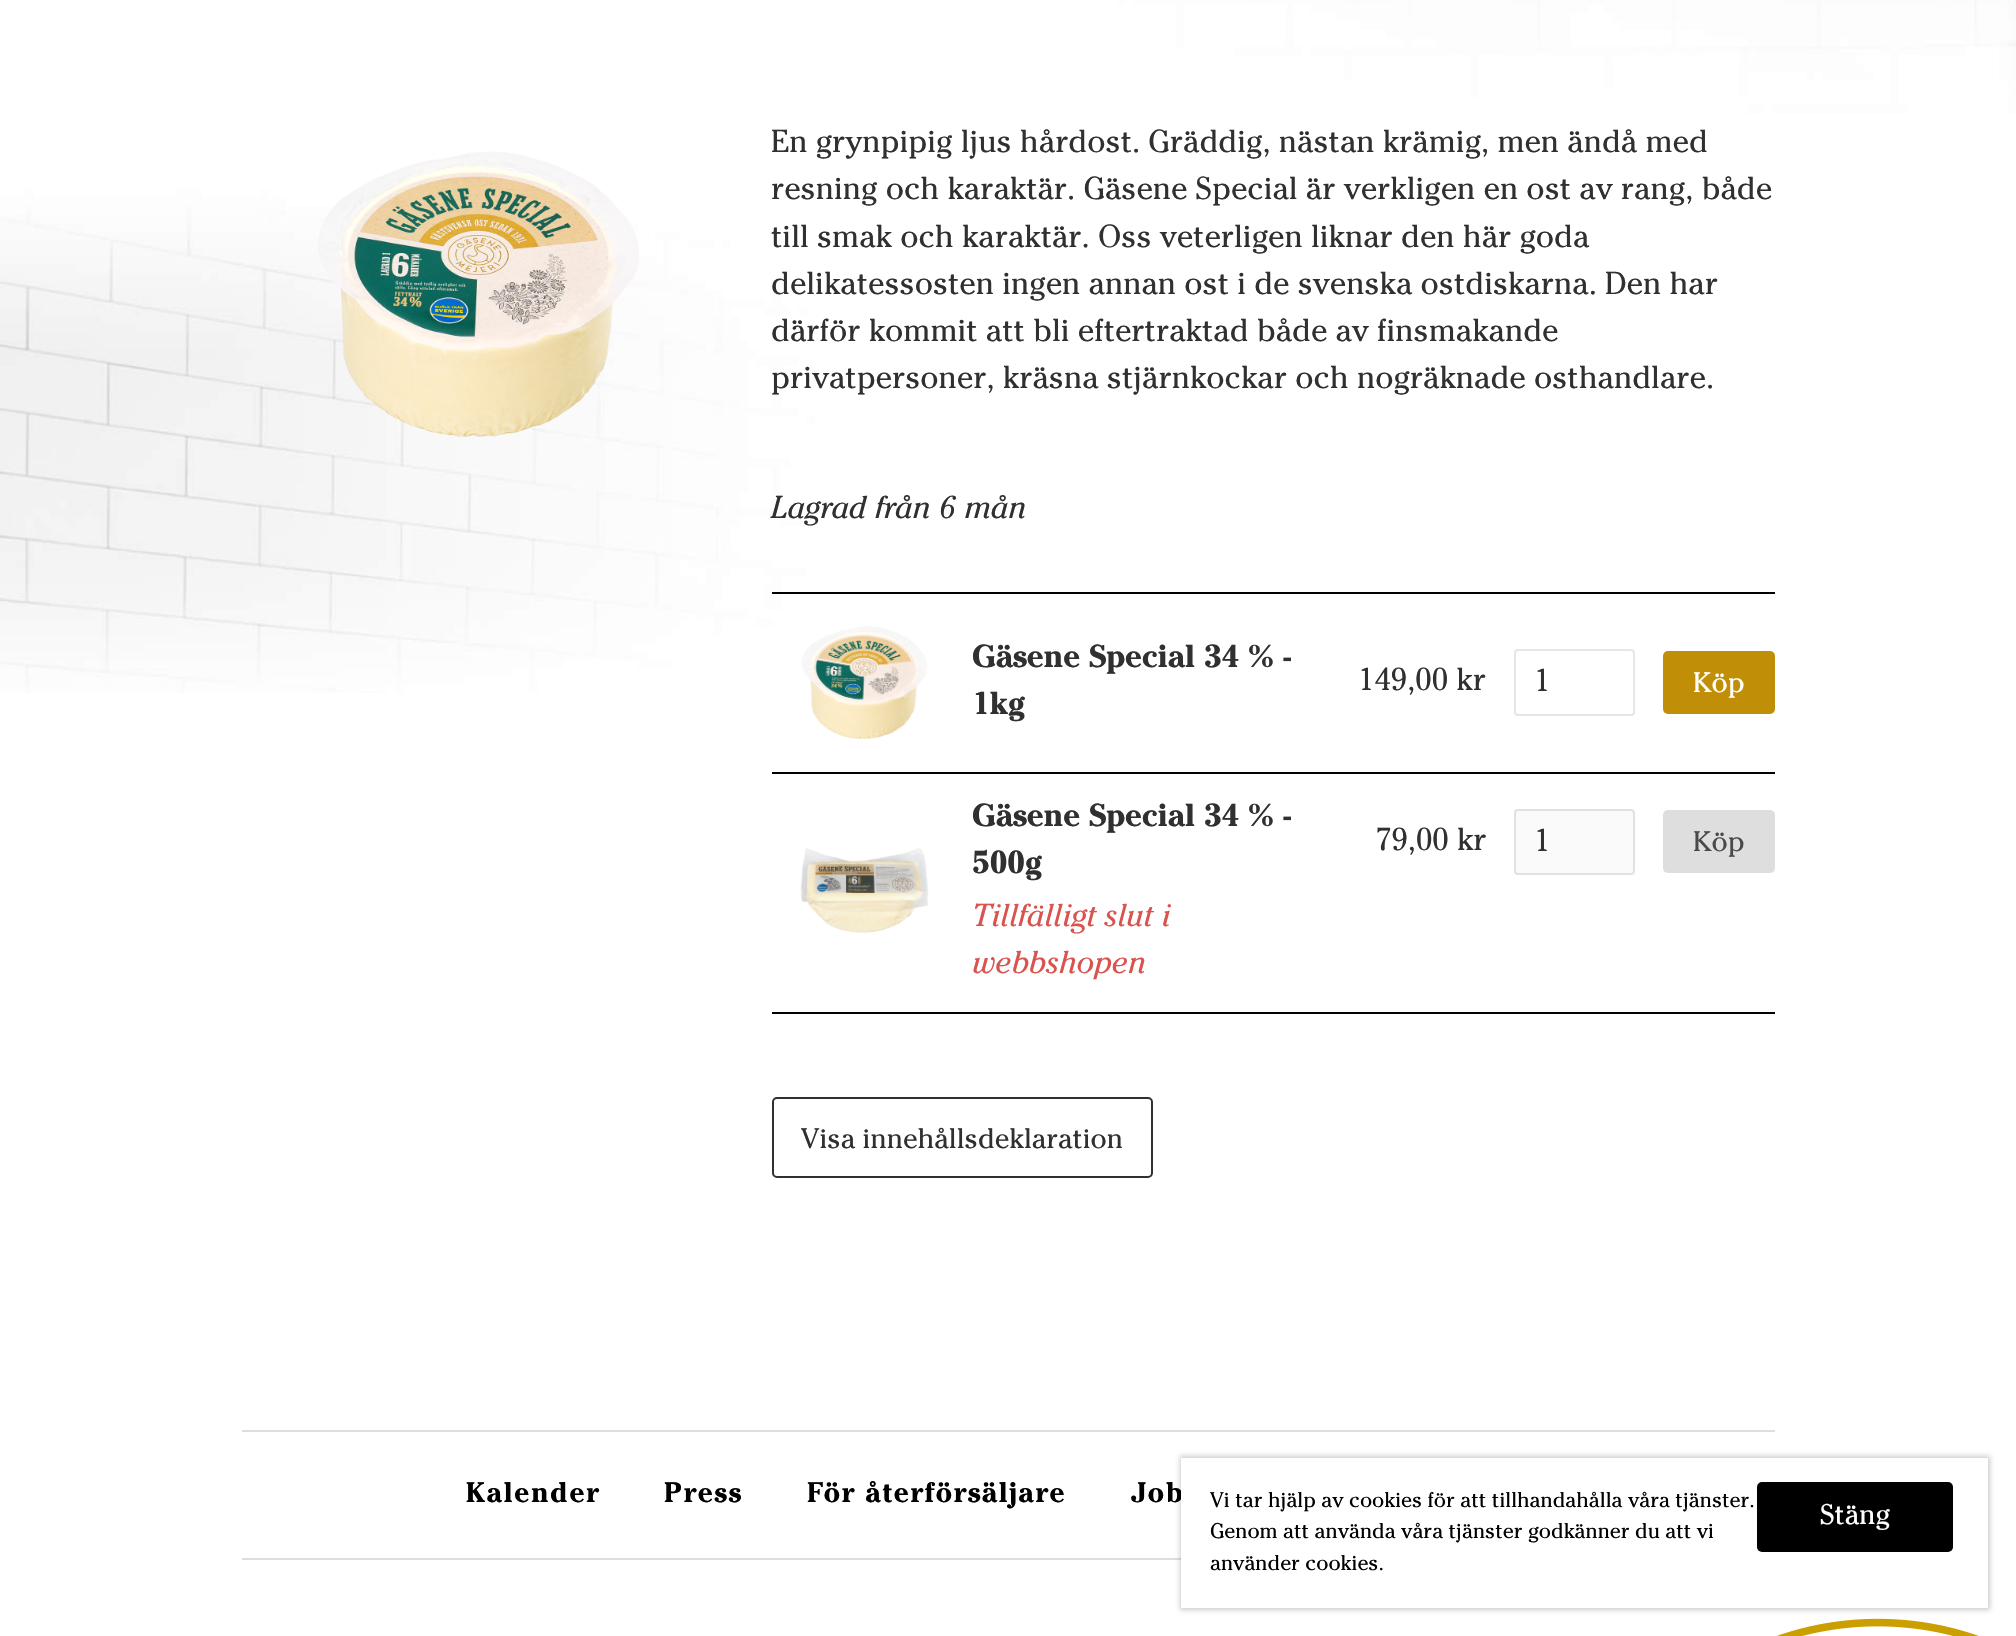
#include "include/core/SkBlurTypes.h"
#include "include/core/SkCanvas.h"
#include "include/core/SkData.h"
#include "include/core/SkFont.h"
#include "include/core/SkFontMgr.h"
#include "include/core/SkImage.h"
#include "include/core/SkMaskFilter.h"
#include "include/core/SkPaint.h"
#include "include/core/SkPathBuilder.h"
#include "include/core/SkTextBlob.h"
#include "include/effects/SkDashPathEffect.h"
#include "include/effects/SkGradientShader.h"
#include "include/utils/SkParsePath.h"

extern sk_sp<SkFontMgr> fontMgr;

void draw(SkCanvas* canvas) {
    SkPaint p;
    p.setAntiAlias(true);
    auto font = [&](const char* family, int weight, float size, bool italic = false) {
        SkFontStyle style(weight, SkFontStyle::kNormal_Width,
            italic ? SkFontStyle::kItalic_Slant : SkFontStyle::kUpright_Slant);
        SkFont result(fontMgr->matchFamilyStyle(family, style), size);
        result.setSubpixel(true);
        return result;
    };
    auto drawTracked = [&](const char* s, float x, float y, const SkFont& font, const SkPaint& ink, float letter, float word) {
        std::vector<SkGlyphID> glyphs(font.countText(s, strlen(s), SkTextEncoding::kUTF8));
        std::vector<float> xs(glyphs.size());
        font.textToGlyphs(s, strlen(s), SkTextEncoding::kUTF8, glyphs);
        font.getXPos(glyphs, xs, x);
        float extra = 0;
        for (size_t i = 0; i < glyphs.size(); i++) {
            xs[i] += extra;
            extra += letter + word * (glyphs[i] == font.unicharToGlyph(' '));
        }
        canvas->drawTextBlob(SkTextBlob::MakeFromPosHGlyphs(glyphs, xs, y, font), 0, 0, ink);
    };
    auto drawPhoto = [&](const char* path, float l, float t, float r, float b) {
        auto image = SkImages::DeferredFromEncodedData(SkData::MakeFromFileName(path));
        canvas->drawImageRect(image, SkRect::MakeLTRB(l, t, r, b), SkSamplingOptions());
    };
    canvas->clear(0xFFFFFFFF);
    drawPhoto("media/1.png", 0, 0, 2016, 693);
    drawPhoto("media/2.png", 318, 151, 639, 437);
    auto font1 = font("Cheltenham", 400, 31.5f);
    p.setColor(0xFF303030);
    {
        const struct { const char* s; float x, y; } items[] = {
            {"En grynpipig ljus hårdost. Gräddig, nästan krämig, men ändå med", 771, 152},
            {"resning och karaktär. Gäsene Special är verkligen en ost av rang, både", 771, 199},
            {"till smak och karaktär. Oss veterligen liknar den här goda", 771, 247},
            {"delikatessosten ingen annan ost i de svenska ostdiskarna. Den har", 771, 294},
            {"därför kommit att bli eftertraktad både av finsmakande", 771, 341},
            {"privatpersoner, kräsna stjärnkockar och nogräknade osthandlare.", 771, 388},
        };
        for (auto [s, x, y] : items) {
            canvas->drawString(s, x, y, font1, p);
        }
    }
    auto font2 = font("Cheltenham", 400, 31.5f, true);
    canvas->drawString("Lagrad från 6 mån", 771, 518, font2, p);
    p.setColor(0xFF000000);
    canvas->drawRect(SkRect::MakeLTRB(772, 1012, 1775, 1014), p);
    canvas->drawRect(SkRect::MakeLTRB(772, 592, 1775, 594), p);
    drawPhoto("media/3.png", 801, 626, 927, 739);
    auto font3 = font("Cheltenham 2", 400, 31.5f);
    p.setColor(0xFF303030);
    canvas->drawString("Gäsene Special 34 % -", 972, 667, font3, p);
    canvas->drawString("1kg", 972, 714, font3, p);
    canvas->drawString("149,00 kr", 1358, 690, font1, p);
    p.setStyle(SkPaint::kStroke_Style);
    p.setStrokeWidth(2);
    p.setColor(0xFFE6E6E6);
    canvas->drawRoundRect(SkRect::MakeLTRB(1515, 650, 1634, 715), 3, 3, p);
    p.setStyle(SkPaint::kFill_Style);
    p.setColor(0xFF303030);
    canvas->drawString("1", 1534, 691, font1, p);
    p.setColor(0xFFC08F07);
    canvas->drawRoundRect(SkRect::MakeLTRB(1663, 651, 1775, 714), 5, 5, p);
    auto font4 = font("Cheltenham", 400, 28);
    p.setColor(0xFFFFFFFF);
    canvas->drawString("Köp", 1693, 692, font4, p);
    p.setColor(0xFF000000);
    canvas->drawRect(SkRect::MakeLTRB(772, 772, 1775, 774), p);
    drawPhoto("media/4.png", 800, 848, 929, 933);
    p.setColor(0xFF303030);
    canvas->drawString("Gäsene Special 34 % -", 972, 826, font3, p);
    canvas->drawString("500g", 972, 873, font3, p);
    canvas->drawString("79,00 kr", 1375, 850, font1, p);
    p.setColor(0xFFFAFAFA);
    canvas->drawRoundRect(SkRect::MakeLTRB(1515, 810, 1634, 874), 3, 3, p);
    p.setStyle(SkPaint::kStroke_Style);
    p.setColor(0xFFE1E1E1);
    canvas->drawRoundRect(SkRect::MakeLTRB(1515, 810, 1634, 874), 3, 3, p);
    p.setStyle(SkPaint::kFill_Style);
    p.setColor(0xFF303030);
    canvas->drawString("1", 1534, 851, font1, p);
    p.setColor(0xFFDEDEDE);
    canvas->drawRoundRect(SkRect::MakeLTRB(1663, 810, 1775, 873), 5, 5, p);
    p.setColor(0xFF4A4A4A);
    canvas->drawString("Köp", 1693, 851, font4, p);
    p.setColor(0xFFD9534F);
    canvas->drawString("Tillfälligt slut i", 972, 926, font2, p);
    canvas->drawString("webbshopen", 972, 973, font2, p);
    p.setStyle(SkPaint::kStroke_Style);
    p.setColor(0xFF303030);
    canvas->drawRoundRect(SkRect::MakeLTRB(773, 1098, 1152, 1177), 4, 4, p);
    p.setStyle(SkPaint::kFill_Style);
    canvas->drawString("Visa innehållsdeklaration", 801, 1148, font4, p);
    p.setColor(0xFFDEDEDE);
    canvas->drawRect(SkRect::MakeLTRB(242, 1430, 1775, 1432), p);
    canvas->drawRect(SkRect::MakeLTRB(242, 1558, 1181, 1560), p);
    auto font5 = font("Cheltenham 2", 400, 28);
    p.setColor(0xFF000000);
    {
        const struct { const char* s; float x, y; } items[] = {
            {"Kalender", 466, 1502},
            {"Press", 664, 1502},
            {"För återförsäljare", 807, 1502},
            {"Job", 1131, 1502},
        };
        for (auto [s, x, y] : items) {
            drawTracked(s, x, y, font5, p, 1.75f, 0);
        }
    }
    drawPhoto("media/5.png", 1776, 1618, 1979, 1636);
    p.setColor(0x33000000);
    p.setMaskFilter(SkMaskFilter::MakeBlur(kNormal_SkBlurStyle, 2.5f));
    canvas->drawRect(SkRect::MakeLTRB(1180, 1456, 1990, 1610), p);
    p.setMaskFilter(nullptr);
    p.setColor(0xFFFFFFFF);
    canvas->drawRect(SkRect::MakeLTRB(1181, 1458, 1988, 1608), p);
    auto font6 = font("Cheltenham", 400, 21);
    p.setColor(0xFF000000);
    {
        const struct { const char* s; float x, y; } items[] = {
            {"Vi tar hjälp av cookies för att tillhandahålla våra tjänster.", 1210, 1507},
            {"Genom att använda våra tjänster godkänner du att vi", 1210, 1538},
            {"använder cookies.", 1210, 1570},
        };
        for (auto [s, x, y] : items) {
            canvas->drawString(s, x, y, font6, p);
        }
    }
    canvas->drawRoundRect(SkRect::MakeLTRB(1757, 1482, 1953, 1552), 5, 5, p);
    p.setColor(0xFFFFFFFF);
    canvas->drawString("Stäng", 1820, 1524, font4, p);
}
